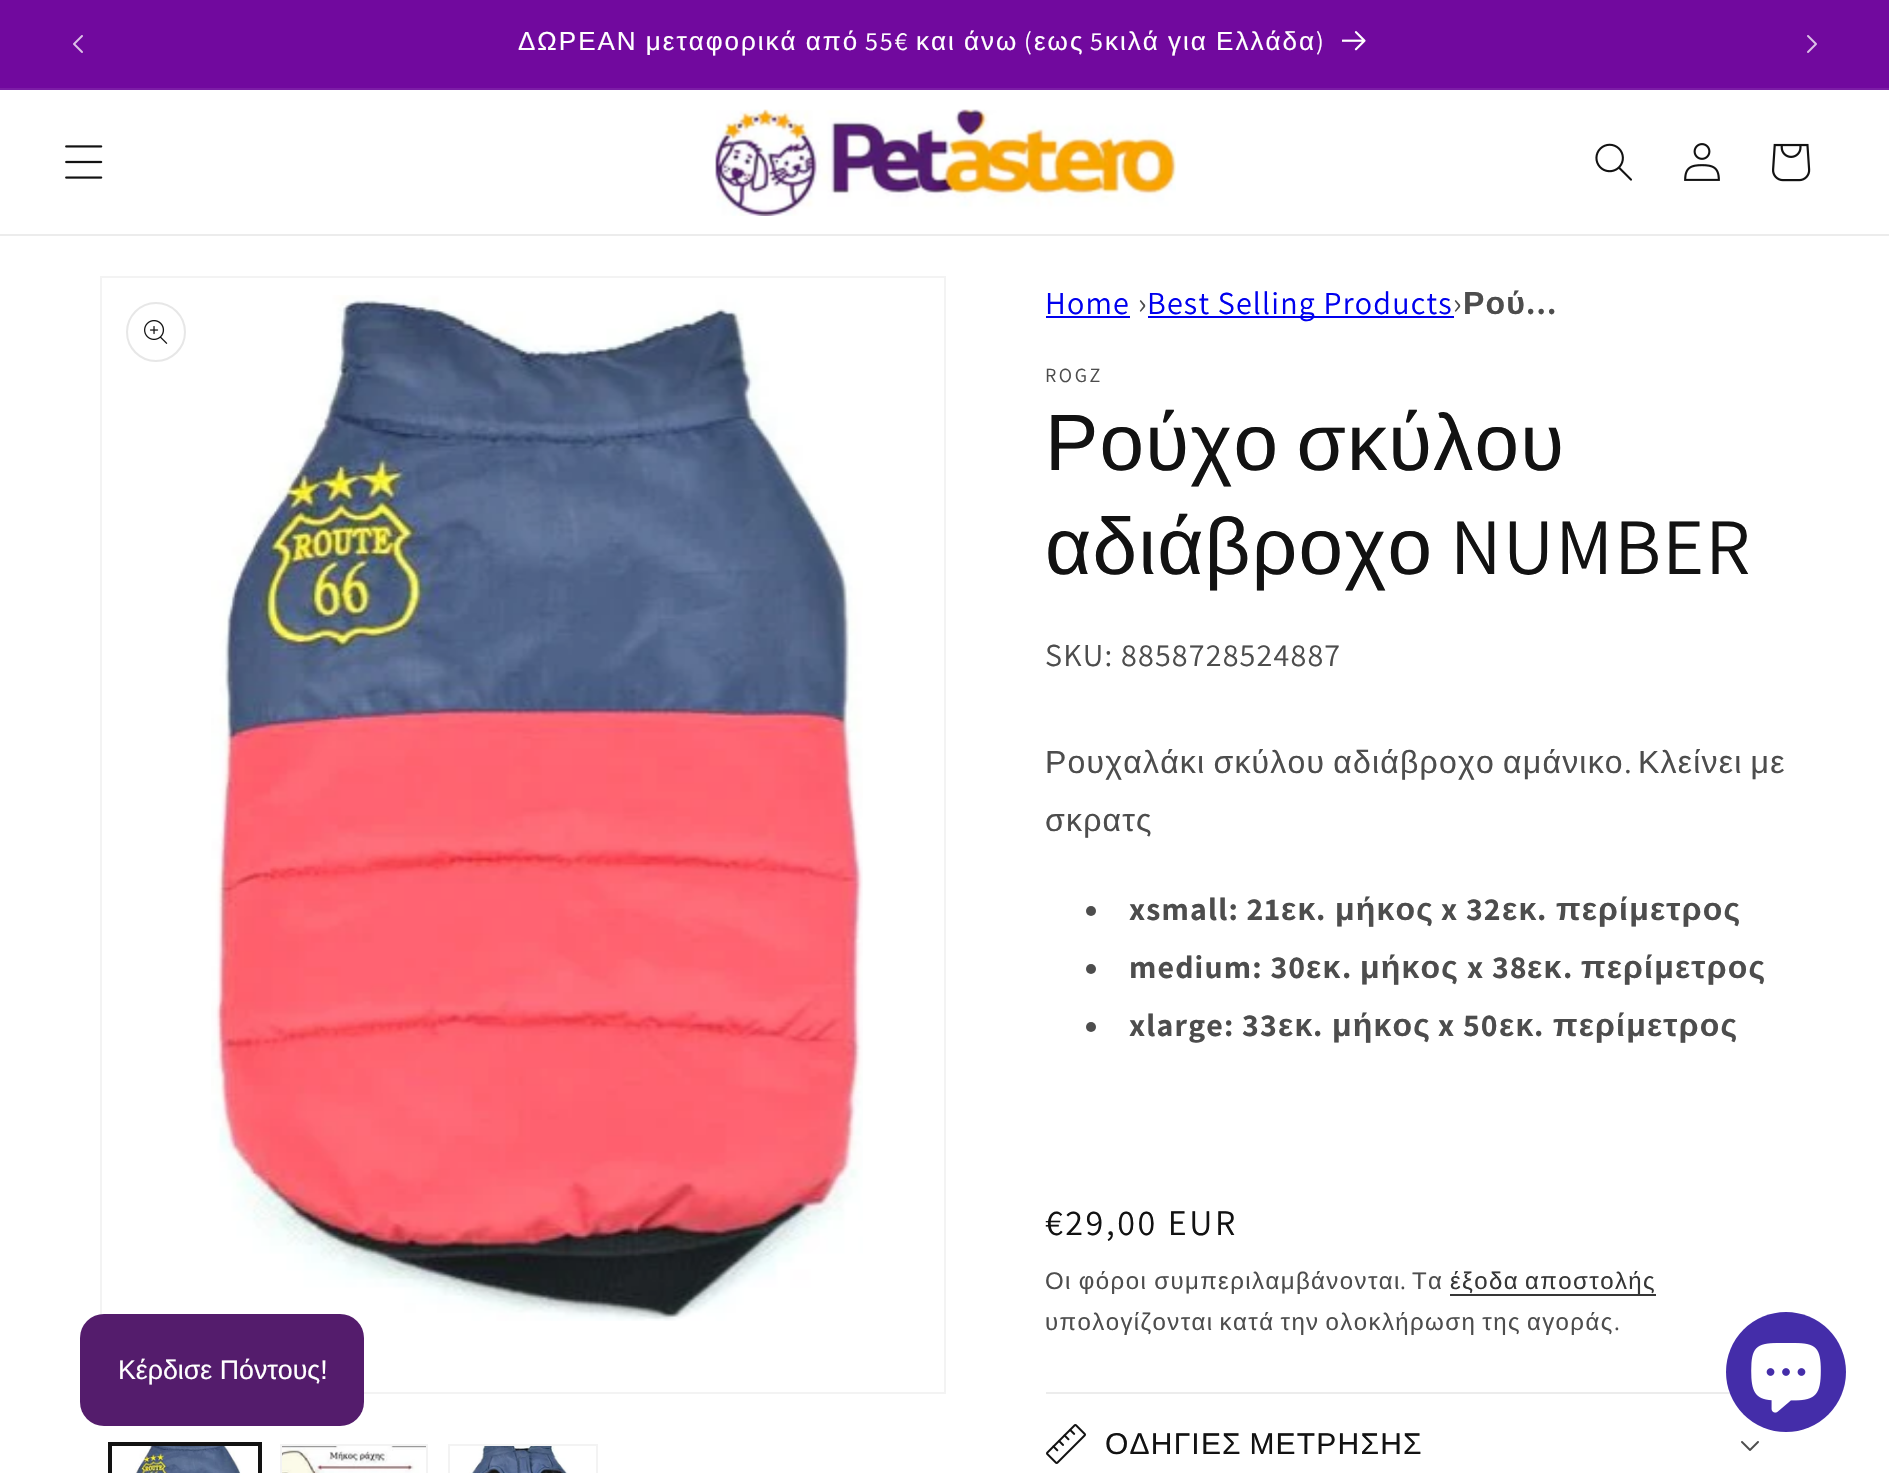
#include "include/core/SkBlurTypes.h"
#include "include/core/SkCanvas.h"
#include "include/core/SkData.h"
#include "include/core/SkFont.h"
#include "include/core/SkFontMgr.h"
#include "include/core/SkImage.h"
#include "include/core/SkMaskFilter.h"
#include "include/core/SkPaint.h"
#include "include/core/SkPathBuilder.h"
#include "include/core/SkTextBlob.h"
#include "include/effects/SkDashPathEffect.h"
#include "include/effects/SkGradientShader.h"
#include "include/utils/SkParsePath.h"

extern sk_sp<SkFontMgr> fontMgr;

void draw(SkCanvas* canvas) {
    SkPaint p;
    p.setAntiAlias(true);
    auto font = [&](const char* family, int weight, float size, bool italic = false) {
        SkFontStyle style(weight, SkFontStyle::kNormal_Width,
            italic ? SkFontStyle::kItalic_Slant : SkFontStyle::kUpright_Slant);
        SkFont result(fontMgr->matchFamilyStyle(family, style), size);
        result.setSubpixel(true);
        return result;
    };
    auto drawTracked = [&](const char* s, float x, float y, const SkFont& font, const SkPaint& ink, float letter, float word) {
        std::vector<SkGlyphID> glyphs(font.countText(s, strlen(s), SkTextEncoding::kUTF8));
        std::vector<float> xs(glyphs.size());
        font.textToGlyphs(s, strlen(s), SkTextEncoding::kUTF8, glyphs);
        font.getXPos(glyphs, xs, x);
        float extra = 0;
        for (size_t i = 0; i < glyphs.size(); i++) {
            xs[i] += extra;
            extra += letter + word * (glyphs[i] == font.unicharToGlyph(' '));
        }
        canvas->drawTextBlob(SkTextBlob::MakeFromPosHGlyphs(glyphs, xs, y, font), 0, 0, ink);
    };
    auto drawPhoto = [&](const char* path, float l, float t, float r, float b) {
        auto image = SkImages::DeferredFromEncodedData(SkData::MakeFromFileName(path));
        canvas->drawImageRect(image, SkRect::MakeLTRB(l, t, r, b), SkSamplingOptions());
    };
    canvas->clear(0xFFFFFFFF);
    {
        const SkColor colors[] = {0xFFF4A404, 0xFF71099E};
        const float stops[] = {0.11f, 0.73f};
        const SkPoint ends[] = {{945, 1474}, {945, 0}};
        p.setShader(SkGradientShader::MakeLinear(ends, colors, stops, 2, SkTileMode::kClamp));
        p.setAlpha(255);
    }
    canvas->drawRect(SkRect::MakeLTRB(0, 0, 1889, 88), p);
    p.setShader(nullptr);
    p.setColor(0xFF7C1DA6);
    canvas->drawRect(SkRect::MakeLTRB(0, 88, 1889, 90), p);
    drawPhoto("media/1.png", 73, 35, 83, 53);
    auto font1 = font("Liberation Sans", 400, 26);
    p.setColor(0xFFFFFFFF);
    drawTracked("ΔΩΡΕΑΝ μεταφορικά από", 518, 50, font1, p, 2, -1);
    auto font2 = font("Assistant", 400, 26);
    drawTracked("55€", 865, 50, font2, p, 2, 0);
    drawTracked("και άνω", 916, 50, font1, p, 2, -1);
    drawTracked("(", 1024, 50, font2, p, 2, 0);
    drawTracked("εως", 1034, 50, font1, p, 2, 0);
    drawTracked("5", 1090, 50, font2, p, 2, 0);
    drawTracked("κιλά για Ελλάδα", 1105, 50, font1, p, 2, -1);
    drawTracked(")", 1316, 50, font2, p, 2, 0);
    drawPhoto("media/2.png", 1342, 31, 1366, 51);
    drawPhoto("media/3.png", 1807, 35, 1817, 53);
    p.setColor(0xFFECECEC);
    canvas->drawRect(SkRect::MakeLTRB(0, 234, 1889, 236), p);
    drawPhoto("media/4.png", 65, 145, 103, 179);
    drawPhoto("media/5.png", 715, 109, 1176, 216);
    drawPhoto("media/6.png", 1595, 143, 1632, 181);
    drawPhoto("media/7.png", 1684, 143, 1720, 181);
    drawPhoto("media/8.png", 1772, 143, 1811, 182);
    p.setStyle(SkPaint::kStroke_Style);
    p.setStrokeWidth(2);
    p.setColor(0xFFF3F3F3);
    canvas->drawRect(SkRect::MakeLTRB(101, 277, 945, 1393), p);
    drawPhoto("media/10.png", 211, 295, 863, 1321);
    p.setStyle(SkPaint::kFill_Style);
    p.setColor(0xFF541C6C);
    canvas->drawRoundRect(SkRect::MakeLTRB(80, 1314, 364, 1426), 24, 24, p);
    auto font3 = font("Liberation Sans", 400, 26.75f);
    p.setColor(0xFFFFFFFF);
    canvas->drawString("Κέρδισε Πόντους!", 118, 1379, font3, p);
    p.setStyle(SkPaint::kStroke_Style);
    p.setColor(0xFFE7E7E7);
    canvas->drawCircle(156, 332, 29, p);
    drawPhoto("media/9.png", 144, 320, 168, 344);
    p.setColor(0xFF121212);
    canvas->drawRect(SkRect::MakeLTRB(109, 1443, 261, 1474), p);
    canvas->drawRect(SkRect::MakeLTRB(111, 1445, 259, 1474), p);
    drawPhoto("media/11.png", 135, 1446, 241, 1473);
    p.setColor(0xFFF3F3F3);
    canvas->drawRect(SkRect::MakeLTRB(281, 1445, 427, 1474), p);
    drawPhoto("media/12.png", 282, 1446, 426, 1473);
    canvas->drawRect(SkRect::MakeLTRB(449, 1445, 597, 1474), p);
    drawPhoto("media/13.png", 469, 1446, 568, 1473);
    auto font4 = font("Assistant", 400, 32);
    p.setStyle(SkPaint::kFill_Style);
    p.setColor(0xFF0000EE);
    drawTracked("Home", 1045, 314, font4, p, 1.2f, 0);
    canvas->drawRect(SkRect::MakeLTRB(1046, 316, 1130, 318), p);
    p.setColor(0xFF4D4D4D);
    drawTracked("›", 1138, 314, font4, p, 1.2f, 0);
    p.setColor(0xFF0000EE);
    canvas->drawRect(SkRect::MakeLTRB(1148, 316, 1454, 318), p);
    drawTracked("Best Selling Products", 1147, 314, font4, p, 1.2f, 0);
    p.setColor(0xFF4D4D4D);
    drawTracked("›", 1453, 314, font4, p, 1.2f, 0);
    auto font5 = font("Liberation Sans", 700, 32);
    drawTracked("Ρού", 1463, 314, font5, p, 1.2f, 0);
    auto font6 = font("Assistant", 700, 32);
    drawTracked("...", 1526, 314, font6, p, 1.2f, 0);
    auto font7 = font("Assistant", 400, 20);
    drawTracked("ROGZ", 1045, 382, font7, p, 2.6f, 0);
    auto font8 = font("Liberation Sans", 400, 80);
    p.setColor(0xFF121212);
    drawTracked("Ρούχο σκύλου", 1045, 470, font8, p, 1.2f, -6);
    drawTracked("αδιάβροχο", 1045, 574, font8, p, 1.2f, 0);
    auto font9 = font("Assistant", 400, 80);
    drawTracked("NUMBER", 1450, 574, font9, p, 1.2f, 0);
    p.setColor(0xFF4D4D4D);
    drawTracked("SKU: 8858728524887", 1045, 666, font4, p, 1.2f, 0);
    auto font10 = font("Liberation Sans", 400, 32);
    drawTracked("Ρουχαλάκι σκύλου αδιάβροχο αμάνικο", 1045, 773, font10, p, 1.2f, -2);
    drawTracked(".", 1624, 773, font4, p, 1.2f, 0);
    drawTracked("Κλείνει με", 1638, 773, font10, p, 1.2f, -2);
    drawTracked("σκρατς", 1045, 831, font10, p, 1.2f, 0);
    canvas->drawCircle(1091, 911, 5, p);
    drawTracked("xsmall: 21", 1129, 920, font6, p, 1.2f, 0);
    drawTracked("εκ", 1281, 920, font5, p, 1.2f, 0);
    drawTracked("μήκος", 1335, 920, font5, p, 1.2f, 0);
    drawTracked("x 32", 1441, 920, font6, p, 1.2f, 0);
    drawTracked("εκ", 1502, 920, font5, p, 1.2f, 0);
    drawTracked("περίμετρος", 1556, 920, font5, p, 1.2f, 0);
    drawTracked(".", 1316, 920, font6, p, 1.2f, 0);
    drawTracked(".", 1537, 920, font6, p, 1.2f, 0);
    canvas->drawCircle(1091, 969, 5, p);
    drawTracked("medium: 30", 1129, 978, font6, p, 1.2f, 0);
    drawTracked("εκ", 1306, 978, font5, p, 1.2f, 0);
    drawTracked("μήκος", 1360, 978, font5, p, 1.2f, 0);
    drawTracked("x 38", 1467, 978, font6, p, 1.2f, 0);
    drawTracked("εκ", 1527, 978, font5, p, 1.2f, 0);
    drawTracked("περίμετρος", 1581, 978, font5, p, 1.2f, 0);
    drawTracked(".", 1342, 978, font6, p, 1.2f, 0);
    drawTracked(".", 1563, 978, font6, p, 1.2f, 0);
    canvas->drawCircle(1091, 1027, 5, p);
    drawTracked("xlarge: 33", 1129, 1036, font6, p, 1.2f, 0);
    drawTracked("εκ", 1278, 1036, font5, p, 1.2f, 0);
    drawTracked("μήκος", 1332, 1036, font5, p, 1.2f, 0);
    drawTracked("x 50", 1438, 1036, font6, p, 1.2f, 0);
    drawTracked("εκ", 1499, 1036, font5, p, 1.2f, 0);
    drawTracked("περίμετρος", 1553, 1036, font5, p, 1.2f, 0);
    drawTracked(".", 1313, 1036, font6, p, 1.2f, 0);
    drawTracked(".", 1534, 1036, font6, p, 1.2f, 0);
    auto font11 = font("Assistant", 400, 36);
    p.setColor(0xFF121212);
    drawTracked("€29,00 EUR", 1045, 1235, font11, p, 2.6f, 0);
    auto font12 = font("Liberation Sans", 400, 24);
    p.setColor(0xFF4D4D4D);
    drawTracked("Οι φόροι συμπεριλαμβάνονται", 1045, 1289, font12, p, 1.4f, -1);
    auto font13 = font("Assistant", 400, 24);
    drawTracked(".", 1400, 1289, font13, p, 1.4f, 0);
    drawTracked("Τα", 1412, 1289, font12, p, 1.4f, 0);
    p.setColor(0xFF363636);
    drawTracked("έξοδα αποστολής", 1450, 1289, font12, p, 1.4f, -2);
    canvas->drawRect(SkRect::MakeLTRB(1450, 1294, 1656, 1296), p);
    p.setColor(0xFF4D4D4D);
    drawTracked("υπολογίζονται κατά την ολοκλήρωση της αγοράς", 1045, 1330, font12, p, 1.4f, -2);
    drawTracked(".", 1614, 1330, font13, p, 1.4f, 0);
    p.setColor(0xFFECECEC);
    canvas->drawRect(SkRect::MakeLTRB(1046, 1392, 1731, 1394), p);
    drawPhoto("media/14.png", 1046, 1424, 1086, 1464);
    auto font14 = font("Liberation Sans", 400, 30);
    p.setColor(0xFF121212);
    drawTracked("ΟΔΗΓΙΕΣ ΜΕΤΡΗΣΗΣ", 1105, 1454, font14, p, 1.2f, -2);
    drawPhoto("media/15.png", 1741, 1441, 1759, 1451);
    p.setColor(0xFF442DA9);
    canvas->drawCircle(1786, 1372, 60, p);
    drawPhoto("media/16.png", 1751, 1343, 1821, 1413);
}
